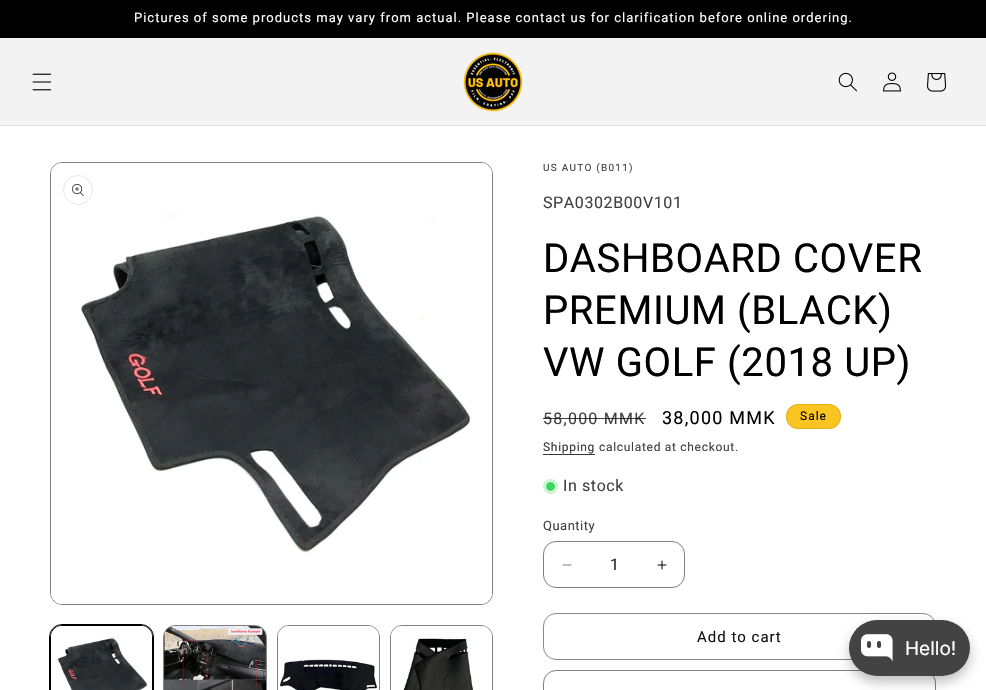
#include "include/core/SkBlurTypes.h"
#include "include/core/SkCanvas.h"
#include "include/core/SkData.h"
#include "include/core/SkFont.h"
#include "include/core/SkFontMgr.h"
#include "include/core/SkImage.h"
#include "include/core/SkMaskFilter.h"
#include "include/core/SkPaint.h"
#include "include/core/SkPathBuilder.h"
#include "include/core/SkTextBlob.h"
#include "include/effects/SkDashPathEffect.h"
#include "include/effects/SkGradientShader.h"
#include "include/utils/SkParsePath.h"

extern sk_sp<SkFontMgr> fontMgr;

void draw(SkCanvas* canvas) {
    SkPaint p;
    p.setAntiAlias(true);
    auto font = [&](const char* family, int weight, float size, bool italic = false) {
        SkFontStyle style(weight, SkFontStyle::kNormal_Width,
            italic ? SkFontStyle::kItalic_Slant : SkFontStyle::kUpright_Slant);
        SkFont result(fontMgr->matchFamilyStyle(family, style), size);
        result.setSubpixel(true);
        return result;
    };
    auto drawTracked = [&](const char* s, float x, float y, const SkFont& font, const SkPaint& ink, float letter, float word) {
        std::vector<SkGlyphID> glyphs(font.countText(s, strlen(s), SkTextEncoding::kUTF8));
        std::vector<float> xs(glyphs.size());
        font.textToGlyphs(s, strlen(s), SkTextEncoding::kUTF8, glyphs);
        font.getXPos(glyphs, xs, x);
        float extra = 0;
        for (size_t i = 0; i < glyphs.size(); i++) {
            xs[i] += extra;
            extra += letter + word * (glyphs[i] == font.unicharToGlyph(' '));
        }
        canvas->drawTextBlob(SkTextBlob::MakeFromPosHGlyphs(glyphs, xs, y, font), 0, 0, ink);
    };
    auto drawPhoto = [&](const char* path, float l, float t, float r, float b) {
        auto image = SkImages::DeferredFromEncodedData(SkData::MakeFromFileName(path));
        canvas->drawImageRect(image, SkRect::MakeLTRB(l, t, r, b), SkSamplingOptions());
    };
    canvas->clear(0xFFFFFFFF);
    p.setColor(0xFF000000);
    canvas->drawRect(SkRect::MakeLTRB(0, 0, 986, 38), p);
    auto font1 = font("Roboto", 400, 13);
    p.setColor(0xFFFFFFFF);
    drawTracked("Pictures of some products may vary from actual. Please contact us for clarification before online ordering.", 134, 22, font1, p, 1, 0);
    p.setColor(0xFFF3F3F3);
    canvas->drawRect(SkRect::MakeLTRB(0, 38, 986, 125), p);
    p.setColor(0xFFE0E0E0);
    canvas->drawRect(SkRect::MakeLTRB(0, 125, 986, 126), p);
    drawPhoto("media/1.png", 32, 73, 52, 91);
    drawPhoto("media/2.png", 463, 52, 523, 112);
    drawPhoto("media/3.png", 838, 72, 857, 92);
    drawPhoto("media/4.png", 883, 72, 901, 92);
    drawPhoto("media/5.png", 927, 73, 947, 92);
    p.setStyle(SkPaint::kStroke_Style);
    p.setStrokeWidth(1);
    p.setColor(0xFF808080);
    canvas->drawRoundRect(SkRect::MakeLTRB(50.5f, 162.5f, 492.5f, 604.5f), 11.5f, 11.5f, p);
    drawPhoto("media/6.png", 51, 163, 492, 604);
    p.setColor(0xFFE6E6E6);
    canvas->drawCircle(78, 190, 14.5f, p);
    drawPhoto("media/7.png", 72, 184, 84, 196);
    p.setColor(0xFF000000);
    canvas->drawRoundRect(SkRect::MakeLTRB(49.5f, 624.5f, 153.5f, 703.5f), 12.5f, 12.5f, p);
    canvas->drawRoundRect(SkRect::MakeLTRB(50.5f, 625.5f, 152.5f, 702.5f), 11.5f, 11.5f, p);
    drawPhoto("media/8.png", 51, 626, 152, 690);
    p.setColor(0xFF808080);
    canvas->drawRoundRect(SkRect::MakeLTRB(163.5f, 625.5f, 266.5f, 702.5f), 11.5f, 11.5f, p);
    drawPhoto("media/9.png", 164, 626, 266, 690);
    canvas->drawRoundRect(SkRect::MakeLTRB(277.5f, 625.5f, 379.5f, 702.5f), 11.5f, 11.5f, p);
    drawPhoto("media/10.png", 278, 626, 379, 690);
    canvas->drawRoundRect(SkRect::MakeLTRB(390.5f, 625.5f, 492.5f, 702.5f), 11.5f, 11.5f, p);
    drawPhoto("media/11.png", 391, 626, 492, 690);
    auto font2 = font("Roboto", 400, 10);
    p.setStyle(SkPaint::kFill_Style);
    p.setColor(0xFF404040);
    drawTracked("US AUTO (B011)", 543, 171, font2, p, 1.25f, 0);
    auto font3 = font("Roboto", 400, 16);
    drawTracked("SPA0302B00V101", 543, 208, font3, p, 0.6f, 0);
    auto font4 = font("Roboto", 400, 40);
    p.setColor(0xFF000000);
    {
        const struct { const char* s; float x, y; } items[] = {
            {"DASHBOARD COVER", 543, 272},
            {"PREMIUM (BLACK)", 543, 324},
            {"VW GOLF (2018 UP)", 543, 376},
        };
        for (auto [s, x, y] : items) {
            drawTracked(s, x, y, font4, p, 0.6f, 0);
        }
    }
    p.setColor(0xFF404040);
    drawTracked("58,000 MMK", 543, 424, font3, p, 1.25f, 0);
    p.setColor(0xBF000000);
    canvas->drawRect(SkRect::MakeLTRB(543, 418, 646, 419), p);
    auto font5 = font("Roboto", 400, 18);
    p.setColor(0xFF000000);
    drawTracked("38,000 MMK", 662, 424, font5, p, 1.25f, 0);
    p.setColor(0xFFFAC521);
    canvas->drawRoundRect(SkRect::MakeLTRB(786, 404, 841, 429), 12, 12, p);
    p.setStyle(SkPaint::kStroke_Style);
    p.setColor(0x1A000000);
    canvas->drawRoundRect(SkRect::MakeLTRB(786.5f, 404.5f, 840.5f, 428.5f), 11.5f, 11.5f, p);
    auto font6 = font("Roboto", 400, 12);
    p.setStyle(SkPaint::kFill_Style);
    p.setColor(0xFF000000);
    drawTracked("Sale", 800, 420, font6, p, 1, 0);
    p.setColor(0xFF363636);
    drawTracked("Shipping", 543, 451, font6, p, 0.7f, 0);
    canvas->drawRect(SkRect::MakeLTRB(543, 454, 595, 455), p);
    p.setColor(0xFF404040);
    drawTracked("calculated at checkout.", 599, 451, font6, p, 0.7f, 0);
    p.setColor(0xFFC5F3CF);
    canvas->drawCircle(550.5f, 486.5f, 7.5f, p);
    p.setColor(0xFF3ED660);
    canvas->drawCircle(550.5f, 486.5f, 5, p);
    p.setStyle(SkPaint::kStroke_Style);
    p.setColor(0xFFFFFFFF);
    canvas->drawCircle(550.5f, 486.5f, 5, p);
    p.setStyle(SkPaint::kFill_Style);
    p.setColor(0xFF404040);
    drawTracked("In stock", 563, 491, font3, p, 0.6f, 0);
    drawTracked("Quantity", 543, 530, font1, p, 0.5f, 0);
    drawPhoto("media/12.png", 562, 564, 572, 566);
    drawPhoto("media/13.png", 657, 560, 667, 570);
    p.setStyle(SkPaint::kStroke_Style);
    p.setColor(0xFF808080);
    canvas->drawRoundRect(SkRect::MakeLTRB(543.5f, 541.5f, 684.5f, 587.5f), 12.5f, 12.5f, p);
    p.setStyle(SkPaint::kFill_Style);
    p.setColor(0xFF262626);
    canvas->drawString("1", 610, 570, font3, p);
    p.setStyle(SkPaint::kStroke_Style);
    p.setColor(0xFF898989);
    canvas->drawRoundRect(SkRect::MakeLTRB(543.5f, 613.5f, 935.5f, 659.5f), 12.5f, 12.5f, p);
    auto font7 = font("Roboto", 400, 15);
    p.setStyle(SkPaint::kFill_Style);
    p.setColor(0xFF121212);
    drawTracked("Add to cart", 697, 642, font7, p, 1, 0);
    p.setStyle(SkPaint::kStroke_Style);
    p.setColor(0xFF808080);
    canvas->drawRoundRect(SkRect::MakeLTRB(543.5f, 670.5f, 935.5f, 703.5f), 12.5f, 12.5f, p);
    p.setStyle(SkPaint::kFill_Style);
    p.setColor(0x40000000);
    p.setMaskFilter(SkMaskFilter::MakeBlur(kNormal_SkBlurStyle, 6));
    canvas->drawRoundRect(SkRect::MakeLTRB(849, 626, 970, 682), 28, 28, p);
    p.setMaskFilter(nullptr);
    p.setColor(0xFF434343);
    canvas->drawRoundRect(SkRect::MakeLTRB(849, 620, 970, 676), 28, 28, p);
    drawPhoto("media/14.png", 861, 634, 893, 662);
    auto font8 = font("Inter", 400, 19);
    p.setColor(0xFFFFFFFF);
    canvas->drawString("Hello!", 905, 655, font8, p);
}
